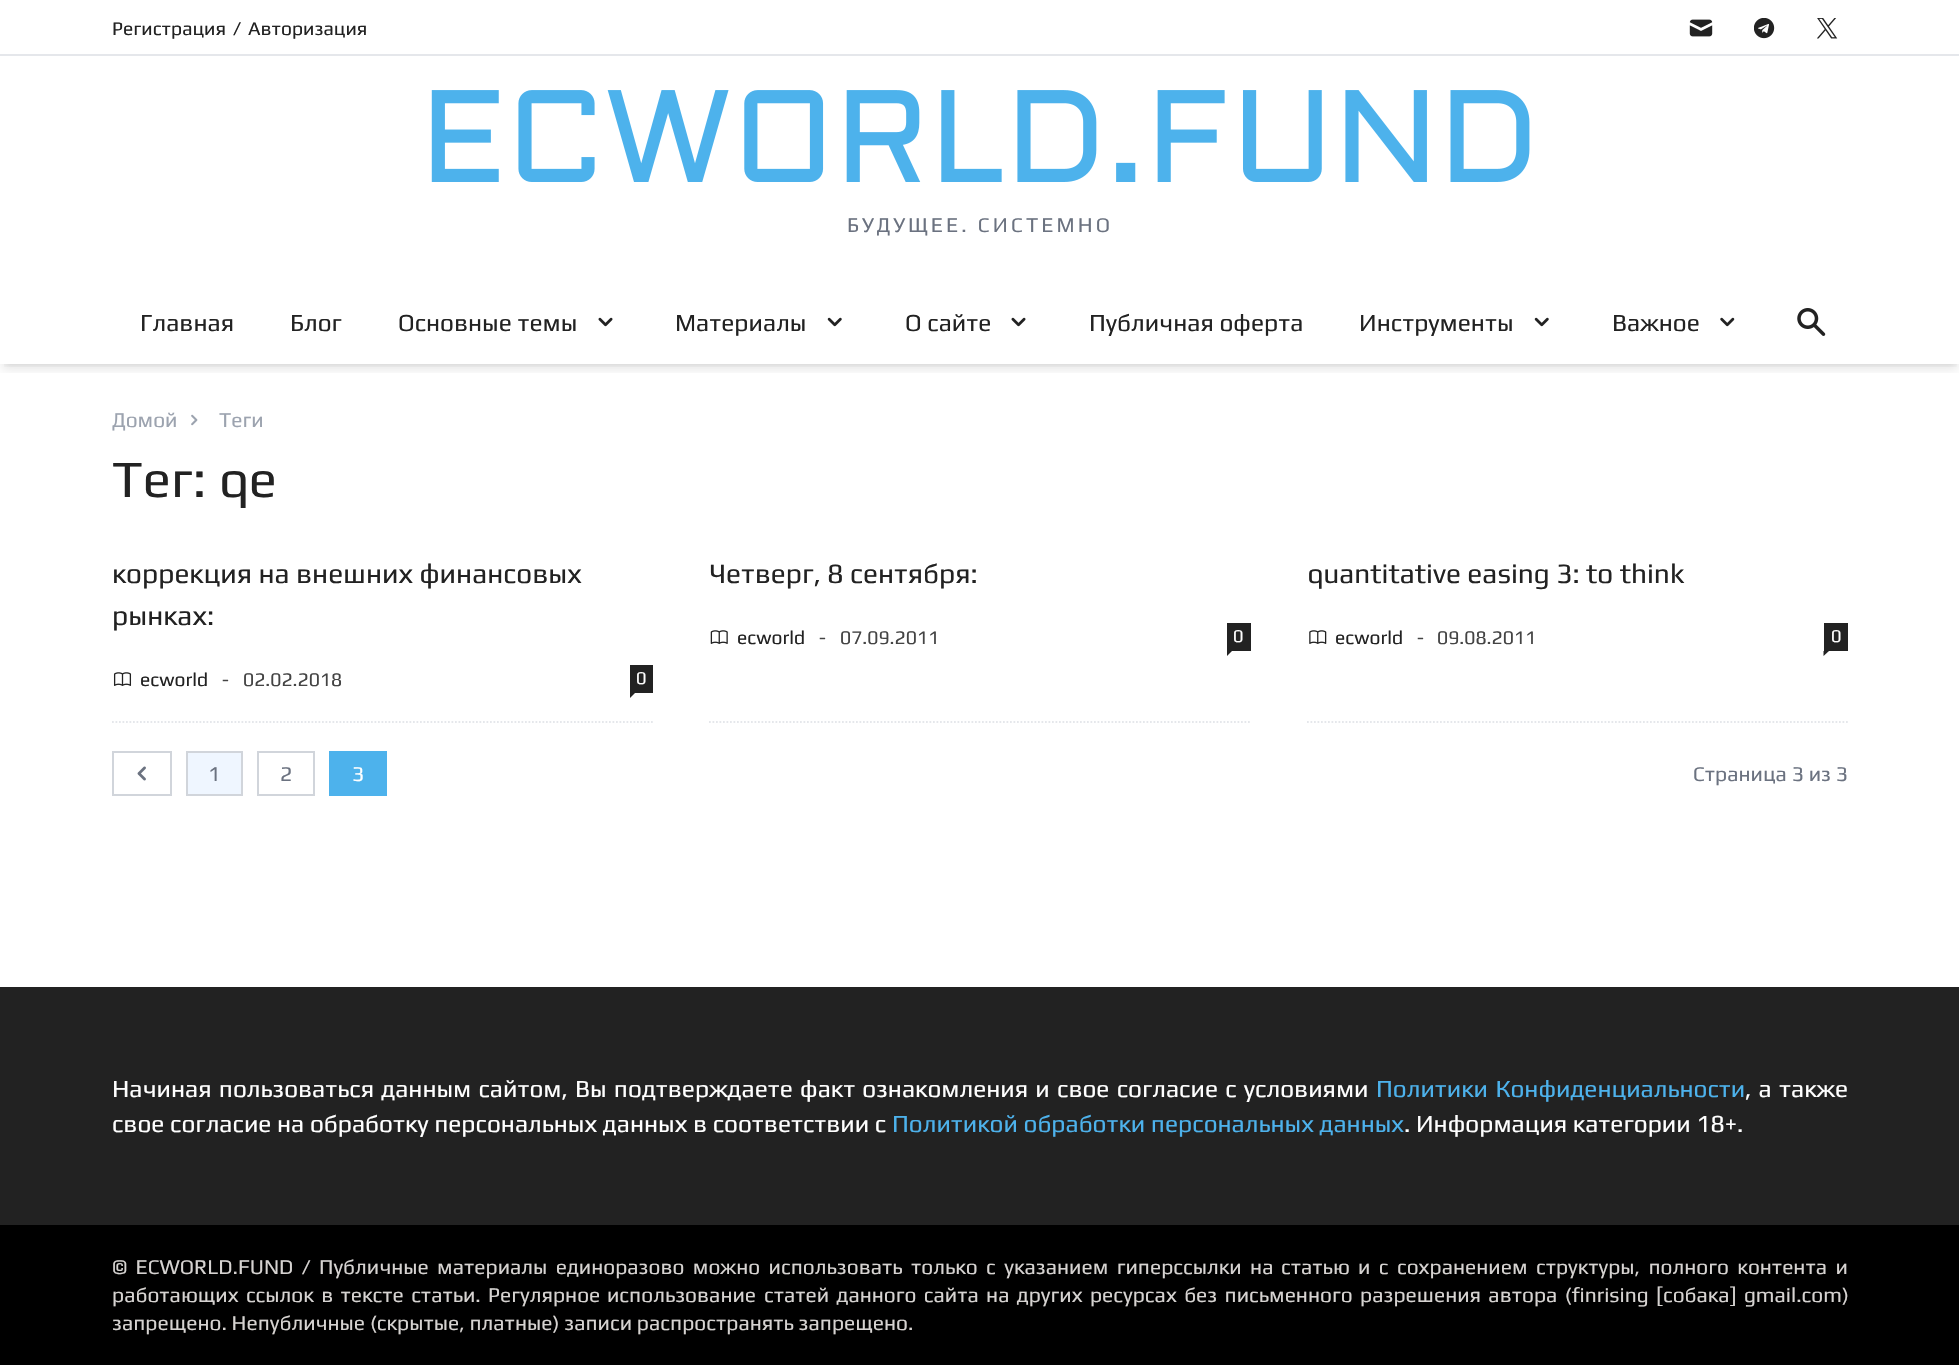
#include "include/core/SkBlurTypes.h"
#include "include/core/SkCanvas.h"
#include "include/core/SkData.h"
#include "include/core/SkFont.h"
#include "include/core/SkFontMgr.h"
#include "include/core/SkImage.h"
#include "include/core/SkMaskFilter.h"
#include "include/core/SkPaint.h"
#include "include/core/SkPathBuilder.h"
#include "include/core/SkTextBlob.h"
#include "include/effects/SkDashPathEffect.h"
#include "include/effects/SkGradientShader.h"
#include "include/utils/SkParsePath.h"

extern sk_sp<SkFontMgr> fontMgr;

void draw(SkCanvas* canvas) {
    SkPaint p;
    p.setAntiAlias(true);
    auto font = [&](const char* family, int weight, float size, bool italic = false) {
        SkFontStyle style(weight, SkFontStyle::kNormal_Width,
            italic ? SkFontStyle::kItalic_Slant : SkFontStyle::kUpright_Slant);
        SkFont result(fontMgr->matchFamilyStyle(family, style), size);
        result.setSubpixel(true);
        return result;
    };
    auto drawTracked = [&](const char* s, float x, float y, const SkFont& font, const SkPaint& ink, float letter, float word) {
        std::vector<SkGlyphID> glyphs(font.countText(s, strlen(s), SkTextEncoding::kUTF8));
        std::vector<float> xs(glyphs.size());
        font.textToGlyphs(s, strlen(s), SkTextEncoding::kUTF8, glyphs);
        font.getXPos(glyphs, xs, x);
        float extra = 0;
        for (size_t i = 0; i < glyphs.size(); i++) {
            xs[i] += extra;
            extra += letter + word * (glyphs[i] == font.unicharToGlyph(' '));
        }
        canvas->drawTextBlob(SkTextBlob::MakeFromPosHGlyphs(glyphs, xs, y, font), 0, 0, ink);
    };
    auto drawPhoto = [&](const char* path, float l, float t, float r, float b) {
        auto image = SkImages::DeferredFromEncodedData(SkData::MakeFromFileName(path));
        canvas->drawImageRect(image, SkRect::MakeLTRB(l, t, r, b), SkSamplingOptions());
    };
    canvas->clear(0xFFFFFFFF);
    p.setColor(0xFFE5E7EB);
    canvas->drawRect(SkRect::MakeLTRB(0, 54, 1959, 56), p);
    auto font1 = font("Play", 400, 19.25f);
    p.setColor(0xFF222222);
    {
        const struct { const char* s; float x, y; } items[] = {
            {"Регистрация", 112, 35},
            {"/", 233, 35},
            {"Авторизация", 248, 35},
        };
        for (auto [s, x, y] : items) {
            canvas->drawString(s, x, y, font1, p);
        }
    }
    drawPhoto("media/1.png", 1689, 19, 1713, 37);
    drawPhoto("media/2.png", 1754, 18, 1775, 39);
    drawPhoto("media/3.png", 1817, 18, 1838, 39);
    drawPhoto("media/4.png", 431, 90, 1530, 182);
    auto font2 = font("Play", 400, 21);
    p.setColor(0xFF6B7280);
    drawTracked("БУДУЩЕЕ. СИСТЕМНО", 847, 232, font2, p, 3.1f, 0);
    canvas->save();
    canvas->clipRect(SkRect::MakeLTRB(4, 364, 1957, 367));
    p.setColor(0x1A000000);
    p.setMaskFilter(SkMaskFilter::MakeBlur(kNormal_SkBlurStyle, 3.5f));
    canvas->drawRect(SkRect::MakeLTRB(4, 287, 1957, 364), p);
    p.setMaskFilter(nullptr);
    canvas->restore();
    canvas->save();
    canvas->clipRect(SkRect::MakeLTRB(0, 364, 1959, 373));
    p.setMaskFilter(SkMaskFilter::MakeBlur(kNormal_SkBlurStyle, 5));
    canvas->drawRect(SkRect::MakeLTRB(2, 289, 1958, 369), p);
    p.setMaskFilter(nullptr);
    canvas->restore();
    auto font3 = font("Play", 400, 24.5f);
    p.setColor(0xFF222222);
    {
        const struct { const char* s; float x, y; } items[] = {
            {"Главная", 140, 331},
            {"Блог", 290, 331},
            {"Основные темы", 398, 331},
        };
        for (auto [s, x, y] : items) {
            canvas->drawString(s, x, y, font3, p);
        }
    }
    drawPhoto("media/5.png", 598, 317, 613, 327);
    canvas->drawString("Материалы", 675, 331, font3, p);
    drawPhoto("media/6.png", 827, 317, 842, 327);
    canvas->drawString("О сайте", 905, 331, font3, p);
    drawPhoto("media/5.png", 1011, 317, 1026, 327);
    canvas->drawString("Публичная оферта", 1089, 331, font3, p);
    canvas->drawString("Инструменты", 1359, 331, font3, p);
    drawPhoto("media/6.png", 1534, 317, 1549, 327);
    canvas->drawString("Важное", 1612, 331, font3, p);
    drawPhoto("media/7.png", 1720, 317, 1735, 327);
    drawPhoto("media/8.png", 1797, 308, 1826, 336);
    p.setColor(0xFF9CA3AF);
    canvas->drawString("Домой", 112, 427, font2, p);
    drawPhoto("media/9.png", 191, 414, 198, 426);
    canvas->drawString("Теги", 219, 427, font2, p);
    auto font4 = font("Play", 400, 52.5f);
    p.setColor(0xFF222222);
    canvas->drawString("Тег: qe", 112, 497, font4, p);
    p.setStyle(SkPaint::kStroke_Style);
    p.setStrokeWidth(1.8f);
    p.setColor(0xFFE5E7EB);
    p.setPathEffect(SkDashPathEffect::Make({{1.75f, 1.75f}}, 0));
    canvas->drawPath(SkPathBuilder().moveTo(112, 722).lineTo(653, 722).detach(), p);
    p.setPathEffect(nullptr);
    auto font5 = font("Play", 400, 28);
    p.setStyle(SkPaint::kFill_Style);
    p.setColor(0xFF222222);
    canvas->drawString("коррекция на внешних финансовых", 112, 583, font5, p);
    canvas->drawString("рынках:", 112, 625, font5, p);
    drawPhoto("media/10.png", 113, 672, 132, 686);
    canvas->drawString("ecworld", 140, 686, font1, p);
    p.setColor(0xFF444444);
    canvas->drawString("-", 222, 686, font1, p);
    canvas->drawString("02.02.2018", 243, 686, font1, p);
    p.setColor(0xFF222222);
    canvas->drawRect(SkRect::MakeLTRB(630, 665, 653, 693), p);
    auto font6 = font("Play", 400, 18);
    p.setColor(0xFFFFFFFF);
    canvas->drawString("0", 636, 684, font6, p);
    p.setColor(0xFF222222);
    canvas->drawPath(SkPathBuilder().moveTo(630, 693).lineTo(635, 693).lineTo(630, 698).close().detach(), p);
    p.setStyle(SkPaint::kStroke_Style);
    p.setColor(0xFFE5E7EB);
    p.setPathEffect(SkDashPathEffect::Make({{1.75f, 1.75f}}, 0));
    canvas->drawPath(SkPathBuilder().moveTo(709, 722).lineTo(1251, 722).detach(), p);
    p.setPathEffect(nullptr);
    p.setStyle(SkPaint::kFill_Style);
    p.setColor(0xFF222222);
    canvas->drawString("Четверг, 8 сентября:", 709, 583, font5, p);
    drawPhoto("media/11.png", 710, 630, 728, 644);
    canvas->drawString("ecworld", 737, 644, font1, p);
    p.setColor(0xFF444444);
    canvas->drawString("-", 819, 644, font1, p);
    canvas->drawString("07.09.2011", 840, 644, font1, p);
    p.setColor(0xFF222222);
    canvas->drawRect(SkRect::MakeLTRB(1227, 623, 1251, 651), p);
    p.setColor(0xFFFFFFFF);
    canvas->drawString("0", 1233, 642, font6, p);
    p.setColor(0xFF222222);
    canvas->drawPath(SkPathBuilder().moveTo(1227, 651).lineTo(1232, 651).lineTo(1227, 656).close().detach(), p);
    p.setStyle(SkPaint::kStroke_Style);
    p.setColor(0xFFE5E7EB);
    p.setPathEffect(SkDashPathEffect::Make({{1.75f, 1.75f}}, 0));
    canvas->drawPath(SkPathBuilder().moveTo(1307, 722).lineTo(1848, 722).detach(), p);
    p.setPathEffect(nullptr);
    p.setStyle(SkPaint::kFill_Style);
    p.setColor(0xFF222222);
    canvas->drawString("quantitative easing 3: to think", 1307, 583, font5, p);
    drawPhoto("media/12.png", 1309, 630, 1327, 644);
    canvas->drawString("ecworld", 1335, 644, font1, p);
    p.setColor(0xFF444444);
    canvas->drawString("-", 1417, 644, font1, p);
    canvas->drawString("09.08.2011", 1437, 644, font1, p);
    p.setColor(0xFF222222);
    canvas->drawRect(SkRect::MakeLTRB(1824, 623, 1848, 651), p);
    p.setColor(0xFFFFFFFF);
    canvas->drawString("0", 1831, 642, font6, p);
    p.setColor(0xFF222222);
    canvas->drawPath(SkPathBuilder().moveTo(1823.5f, 651).lineTo(1829, 651).lineTo(1823.5f, 656).close().detach(), p);
    p.setStyle(SkPaint::kStroke_Style);
    p.setStrokeWidth(2);
    p.setColor(0xFFD1D5DB);
    canvas->drawRect(SkRect::MakeLTRB(113, 752, 171, 795), p);
    drawPhoto("media/13.png", 137, 766, 146, 781);
    p.setStyle(SkPaint::kFill_Style);
    p.setColor(0xFFEFF6FF);
    canvas->drawRect(SkRect::MakeLTRB(187, 752, 242, 795), p);
    p.setStyle(SkPaint::kStroke_Style);
    p.setColor(0xFFD1D5DB);
    canvas->drawRect(SkRect::MakeLTRB(187, 752, 242, 795), p);
    p.setStyle(SkPaint::kFill_Style);
    p.setColor(0xFF6B7280);
    canvas->drawString("1", 208, 781, font2, p);
    p.setStyle(SkPaint::kStroke_Style);
    p.setColor(0xFFD1D5DB);
    canvas->drawRect(SkRect::MakeLTRB(258, 752, 314, 795), p);
    p.setStyle(SkPaint::kFill_Style);
    p.setColor(0xFF6B7280);
    canvas->drawString("2", 280, 781, font2, p);
    p.setColor(0xFF4DB2EC);
    canvas->drawRect(SkRect::MakeLTRB(329, 751, 387, 796), p);
    p.setColor(0xFFFFFFFF);
    canvas->drawString("3", 352, 781, font2, p);
    p.setColor(0xFF6B7280);
    canvas->drawString("Страница 3 из 3", 1693, 781, font2, p);
    p.setColor(0xFF222222);
    canvas->drawRect(SkRect::MakeLTRB(0, 987, 1959, 1225), p);
    p.setColor(0xFFFFFFFF);
    drawTracked("Начиная пользоваться данным сайтом, Вы подтверждаете факт ознакомления и свое согласие с условиями", 112, 1097, font3, p, 0, 1.6f);
    p.setColor(0xFF4DB2EC);
    drawTracked("Политики Конфиденциальности", 1376, 1097, font3, p, 0, 2);
    p.setColor(0xFFFFFFFF);
    drawTracked(", а", 1745, 1097, font3, p, 0, 1.6f);
    canvas->drawString("также", 1779, 1097, font3, p);
    canvas->drawString("свое согласие на обработку персональных данных в соответствии с", 112, 1132, font3, p);
    p.setColor(0xFF4DB2EC);
    canvas->drawString("Политикой обработки персональных данных", 892, 1132, font3, p);
    p.setColor(0xFFFFFFFF);
    canvas->drawString(". Информация категории 18+.", 1404, 1132, font3, p);
    p.setColor(0xFF000000);
    canvas->drawRect(SkRect::MakeLTRB(0, 1225, 1959, 1365), p);
    p.setColor(0xFFD6D3D1);
    drawTracked("© ECWORLD.FUND / Публичные материалы единоразово можно использовать только с указанием гиперссылки на", 112, 1274, font2, p, 0, 3.6f);
    canvas->drawString("статью", 1281, 1274, font2, p);
    drawTracked("и с сохранением структуры, полного контента и", 1358, 1274, font2, p, 0, 3.6f);
    drawTracked("работающих ссылок в тексте статьи. Регулярное", 112, 1302, font2, p, 0, 2.5f);
    canvas->drawString("использование", 607, 1302, font2, p);
    drawTracked("статей данного сайта на других ресурсах без письменного разрешения автора (finrising [собака] gmail.com)", 764, 1302, font2, p, 0, 2.5f);
    canvas->drawString("запрещено. Непубличные (скрытые, платные) записи распространять запрещено.", 112, 1330, font2, p);
}
